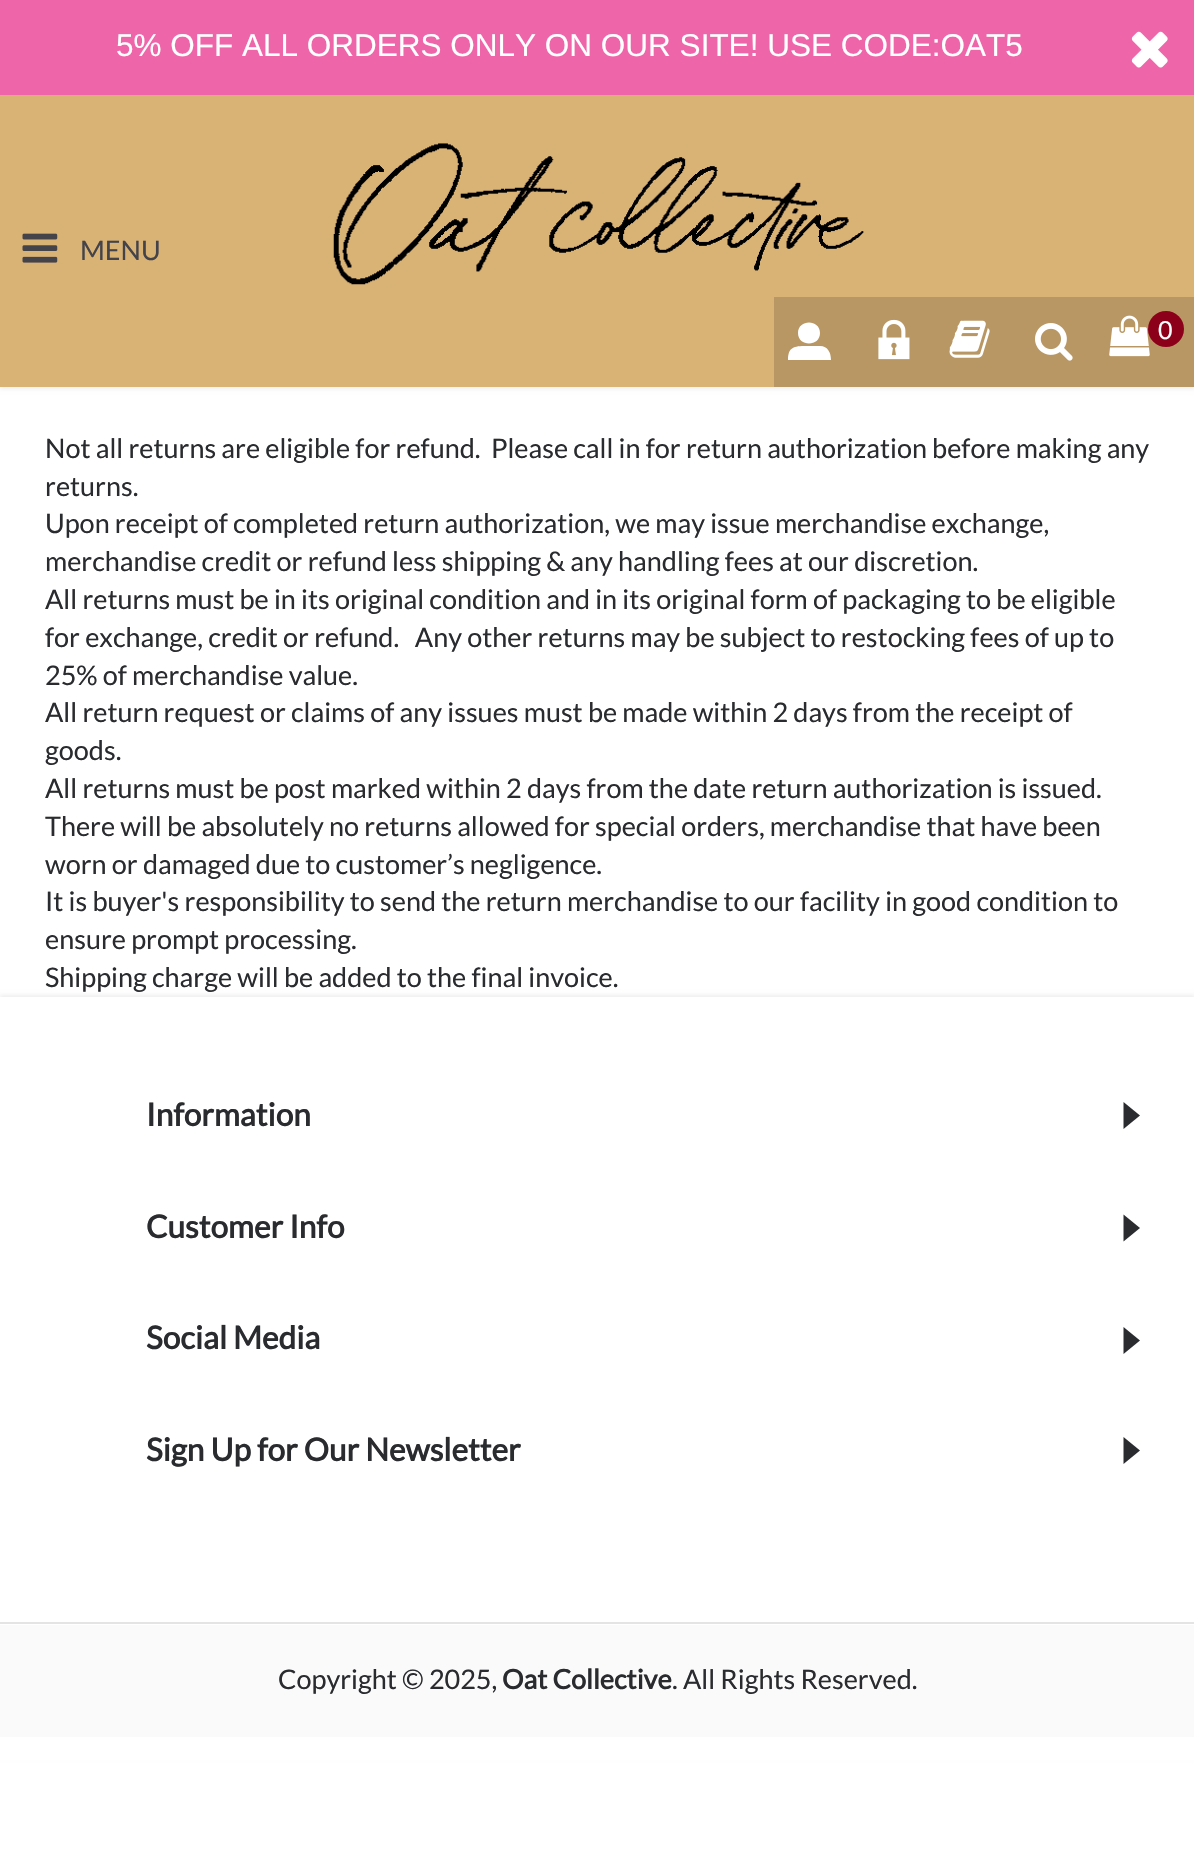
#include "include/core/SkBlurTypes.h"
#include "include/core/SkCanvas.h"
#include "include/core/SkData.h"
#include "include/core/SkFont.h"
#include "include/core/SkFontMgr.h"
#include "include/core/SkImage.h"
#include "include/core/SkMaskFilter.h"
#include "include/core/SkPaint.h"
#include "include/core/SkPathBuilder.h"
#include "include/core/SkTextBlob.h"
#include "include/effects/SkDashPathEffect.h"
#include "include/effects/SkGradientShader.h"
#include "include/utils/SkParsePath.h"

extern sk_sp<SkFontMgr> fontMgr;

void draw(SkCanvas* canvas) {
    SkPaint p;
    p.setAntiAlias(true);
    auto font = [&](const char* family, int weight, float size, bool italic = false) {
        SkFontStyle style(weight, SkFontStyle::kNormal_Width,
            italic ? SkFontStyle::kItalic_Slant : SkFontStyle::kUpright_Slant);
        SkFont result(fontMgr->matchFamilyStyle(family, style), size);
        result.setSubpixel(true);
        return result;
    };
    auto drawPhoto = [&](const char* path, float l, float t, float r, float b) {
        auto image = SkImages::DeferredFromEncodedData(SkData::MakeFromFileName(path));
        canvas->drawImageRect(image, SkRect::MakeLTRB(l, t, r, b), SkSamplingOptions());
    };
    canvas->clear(0xFFFFFFFF);
    p.setColor(0xFFEEEEEE);
    p.setMaskFilter(SkMaskFilter::MakeBlur(kNormal_SkBlurStyle, 2));
    canvas->drawRect(SkRect::MakeLTRB(0, 97, 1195, 389), p);
    p.setMaskFilter(nullptr);
    p.setColor(0xFFEF65A9);
    canvas->drawRect(SkRect::MakeLTRB(0, 0, 1194, 95), p);
    auto font1 = font("Liberation Sans", 400, 31.5f);
    p.setColor(0xFFFFFFFF);
    canvas->drawString("5% OFF ALL ORDERS ONLY ON OUR SITE! USE CODE:OAT5", 116, 56, font1, p);
    drawPhoto("media/1.png", 1131, 31, 1168, 68);
    p.setColor(0xFFD9B276);
    canvas->drawRect(SkRect::MakeLTRB(0, 95, 1194, 387), p);
    drawPhoto("media/2.png", 22, 233, 58, 263);
    auto font2 = font("Lato", 400, 27);
    p.setColor(0xFF444349);
    canvas->drawString("MENU", 80, 260, font2, p);
    drawPhoto("media/3.png", 333, 143, 864, 285);
    p.setColor(0xFFB89764);
    canvas->drawRect(SkRect::MakeLTRB(774, 297, 1105, 387), p);
    p.setColor(0xFFFFFFFF);
    canvas->drawPath(SkPathBuilder().moveTo(798, 333).cubicTo(798, 347, 820, 347, 820, 333).cubicTo(820, 319, 798, 319, 798, 333).close().moveTo(820, 346).lineTo(806, 346).cubicTo(794, 346, 788, 347, 788, 360).lineTo(831, 360).cubicTo(831, 353, 828, 346, 820, 346).close().detach(), p);
    drawPhoto("media/4.png", 878, 319, 910, 360);
    drawPhoto("media/5.png", 949, 320, 990, 358);
    p.setColor(0xFFB89764);
    canvas->drawRect(SkRect::MakeLTRB(1105, 297, 1194, 387), p);
    drawPhoto("media/6.png", 1109, 315, 1150, 357);
    p.setColor(0xFF8C001A);
    canvas->drawCircle(1166, 329, 18, p);
    auto font3 = font("Lato", 400, 25);
    p.setColor(0xFFFFFFFF);
    canvas->drawString("0", 1158, 339, font3, p);
    drawPhoto("media/7.png", 1035, 323, 1073, 361);
    p.setColor(0xFF2A2B2E);
    {
        const struct { const char* s; float x, y; } items[] = {
            {"Not all returns are eligible for refund.  Please call in for return authorization before making any", 45, 458},
            {"returns.", 45, 496},
            {"Upon receipt of completed return authorization, we may issue merchandise exchange,", 45, 533},
            {"merchandise credit or refund less shipping & any handling fees at our discretion.", 45, 571},
            {"All returns must be in its original condition and in its original form of packaging to be eligible", 45, 609},
            {"for exchange, credit or refund.   Any other returns may be subject to restocking fees of up to", 45, 647},
            {"25% of merchandise value.", 45, 685},
            {"All return request or claims of any issues must be made within 2 days from the receipt of", 45, 722},
            {"goods.", 45, 760},
            {"All returns must be post marked within 2 days from the date return authorization is issued.", 45, 798},
            {"There will be absolutely no returns allowed for special orders, merchandise that have been", 45, 836},
            {"worn or damaged due to customer’s negligence.", 45, 874},
            {"It is buyer's responsibility to send the return merchandise to our facility in good condition to", 45, 911},
            {"ensure prompt processing.", 45, 949},
            {"Shipping charge will be added to the final invoice.", 45, 987},
        };
        for (auto [s, x, y] : items) {
            canvas->drawString(s, x, y, font2, p);
        }
    }
    canvas->save();
    canvas->clipPath(SkPathBuilder(SkPathFillType::kEvenOdd).moveTo(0, 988).lineTo(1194, 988).lineTo(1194, 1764).lineTo(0, 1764).close().moveTo(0, 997).lineTo(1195, 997).lineTo(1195, 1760).lineTo(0, 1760).close().detach(), true);
    p.setColor(0xFFEEEEEE);
    p.setMaskFilter(SkMaskFilter::MakeBlur(kNormal_SkBlurStyle, 2));
    canvas->drawRect(SkRect::MakeLTRB(0, 995, 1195, 1757), p);
    p.setMaskFilter(nullptr);
    canvas->restore();
    auto font4 = font("Lato", 700, 31.5f);
    p.setColor(0xFF2A2B2E);
    canvas->drawString("Information", 146, 1126, font4, p);
    canvas->drawPath(SkPathBuilder().moveTo(1123.5f, 1102).lineTo(1123.5f, 1129).lineTo(1140, 1115.5f).close().detach(), p);
    canvas->drawString("Customer Info", 146, 1238, font4, p);
    canvas->drawPath(SkPathBuilder().moveTo(1123.5f, 1214.5f).lineTo(1123.5f, 1241.5f).lineTo(1140, 1228).close().detach(), p);
    canvas->drawString("Social Media", 146, 1349, font4, p);
    canvas->drawPath(SkPathBuilder().moveTo(1123.5f, 1327).lineTo(1123.5f, 1354).lineTo(1140, 1340.5f).close().detach(), p);
    canvas->drawString("Sign Up for Our Newsletter", 146, 1461, font4, p);
    canvas->drawPath(SkPathBuilder().moveTo(1123.5f, 1437).lineTo(1123.5f, 1464).lineTo(1140, 1450.5f).close().detach(), p);
    p.setColor(0xFFFAFAFA);
    canvas->drawRect(SkRect::MakeLTRB(0, 1625, 1194, 1737), p);
    p.setColor(0xFFE4E4E4);
    canvas->drawRect(SkRect::MakeLTRB(0, 1622, 1194, 1624), p);
    p.setColor(0xFF2A2B2E);
    canvas->drawString("Copyright © 2025,", 278, 1689, font2, p);
    auto font5 = font("Lato", 700, 27);
    canvas->drawString("Oat Collective", 502, 1689, font5, p);
    canvas->drawString(". All Rights Reserved.", 672, 1689, font2, p);
}
